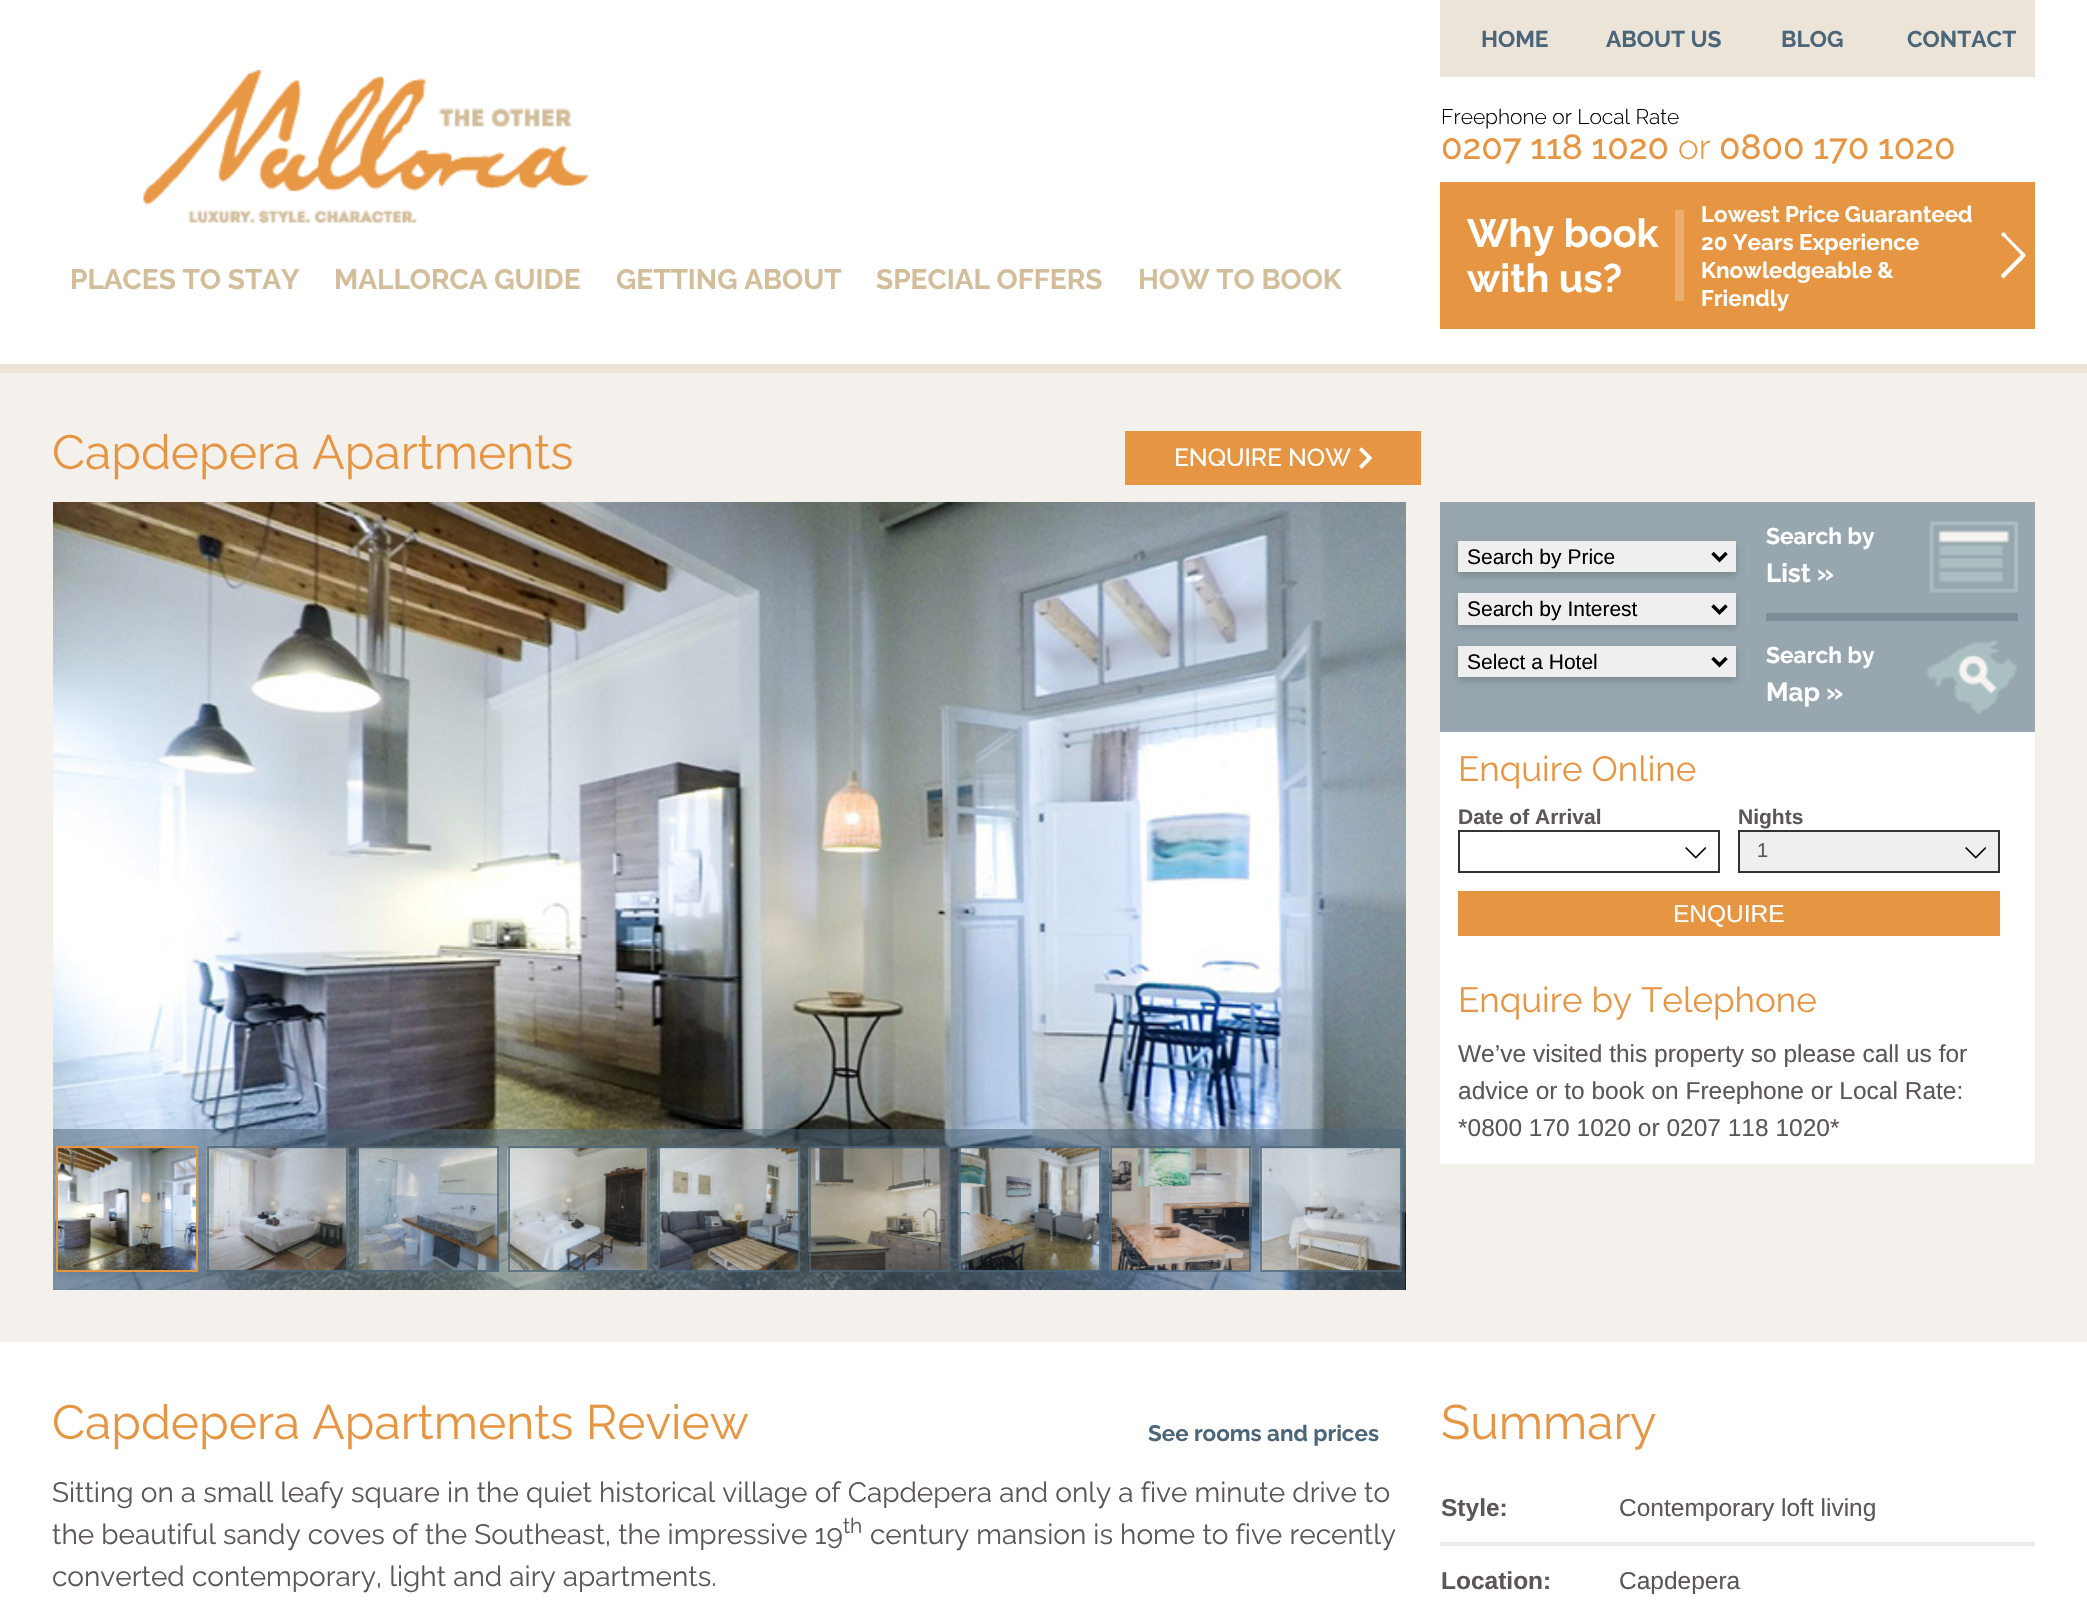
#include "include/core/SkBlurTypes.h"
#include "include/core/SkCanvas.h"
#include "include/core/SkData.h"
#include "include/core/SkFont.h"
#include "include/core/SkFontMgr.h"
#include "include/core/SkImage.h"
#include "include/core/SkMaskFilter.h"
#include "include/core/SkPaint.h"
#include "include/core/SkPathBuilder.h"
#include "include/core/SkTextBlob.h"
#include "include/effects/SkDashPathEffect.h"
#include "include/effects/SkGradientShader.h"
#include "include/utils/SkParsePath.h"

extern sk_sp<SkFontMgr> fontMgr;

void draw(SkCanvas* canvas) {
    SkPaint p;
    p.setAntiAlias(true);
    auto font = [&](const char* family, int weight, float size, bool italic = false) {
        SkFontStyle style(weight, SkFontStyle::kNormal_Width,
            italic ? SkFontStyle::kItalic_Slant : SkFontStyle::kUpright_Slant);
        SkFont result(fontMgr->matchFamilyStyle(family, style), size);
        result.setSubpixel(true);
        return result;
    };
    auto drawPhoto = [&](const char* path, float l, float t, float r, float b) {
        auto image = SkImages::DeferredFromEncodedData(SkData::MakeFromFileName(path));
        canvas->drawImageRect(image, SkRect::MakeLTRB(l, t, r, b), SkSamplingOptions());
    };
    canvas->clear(0xFFFFFFFF);
    p.setColor(0xFFECE4D9);
    canvas->drawRect(SkRect::MakeLTRB(0, 364, 2087, 373), p);
    drawPhoto("media/1.png", 143, 70, 588, 224);
    auto font1 = font("Raleway", 700, 28);
    p.setColor(0xFFD3BE9B);
    {
        const struct { const char* s; float x, y; } items[] = {
            {"PLACES TO STAY", 70, 289},
            {"MALLORCA GUIDE", 334, 289},
            {"GETTING ABOUT", 616, 289},
            {"SPECIAL OFFERS", 876, 289},
            {"HOW TO BOOK", 1138, 289},
        };
        for (auto [s, x, y] : items) {
            canvas->drawString(s, x, y, font1, p);
        }
    }
    p.setColor(0xFFECE4D9);
    canvas->drawRect(SkRect::MakeLTRB(1440, 0, 2035, 77), p);
    auto font2 = font("Raleway", 700, 22.75f);
    p.setColor(0xFF4B6579);
    {
        const struct { const char* s; float x, y; } items[] = {
            {"HOME", 1481, 47},
            {"ABOUT US", 1606, 47},
            {"BLOG", 1781, 47},
            {"CONTACT", 1907, 47},
        };
        for (auto [s, x, y] : items) {
            canvas->drawString(s, x, y, font2, p);
        }
    }
    auto font3 = font("Raleway", 300, 21);
    p.setColor(0xFF000000);
    canvas->drawString("Freephone or Local Rate", 1441, 124, font3, p);
    auto font4 = font("Raleway", 500, 35);
    p.setColor(0xFFE69642);
    canvas->drawString("0207 118 1020", 1441, 159, font4, p);
    auto font5 = font("Raleway", 300, 35);
    canvas->drawString("or", 1678, 159, font5, p);
    canvas->drawString("0800 170 1020", 1719, 159, font4, p);
    canvas->drawRect(SkRect::MakeLTRB(1440, 182, 2035, 329), p);
    p.setColor(0xFFECAF6F);
    canvas->drawRect(SkRect::MakeLTRB(1675, 210, 1684, 301), p);
    auto font6 = font("Raleway", 700, 39.5f);
    p.setColor(0xFFFFFFFF);
    canvas->drawString("Why book", 1467, 247, font6, p);
    canvas->drawString("with us?", 1467, 292, font6, p);
    auto font7 = font("Raleway", 700, 22.4f);
    {
        const struct { const char* s; float x, y; } items[] = {
            {"Lowest Price Guaranteed", 1701, 222},
            {"20 Years Experience", 1701, 250},
            {"Knowledgeable &", 1701, 278},
            {"Friendly", 1701, 306},
        };
        for (auto [s, x, y] : items) {
            canvas->drawString(s, x, y, font7, p);
        }
    }
    canvas->drawPath(SkPathBuilder().moveTo(2002, 233).cubicTo(2000, 235, 2002, 236, 2005, 238).lineTo(2021, 255).lineTo(2001, 275).cubicTo(2001, 277, 2003, 279, 2004, 278).lineTo(2022, 260).cubicTo(2027, 254, 2027, 256, 2022, 251).lineTo(2007, 236).cubicTo(2006, 234, 2004, 231, 2002, 233).close().detach(), p);
    p.setColor(0xFFF4F1ED);
    canvas->drawRect(SkRect::MakeLTRB(0, 373, 2087, 1342), p);
    auto font8 = font("Raleway", 400, 48.1f);
    p.setColor(0xFFE69642);
    canvas->drawString("Capdepera Apartments", 52, 469, font8, p);
    canvas->drawRect(SkRect::MakeLTRB(1125, 431, 1421, 485), p);
    auto font9 = font("Raleway", 500, 24.5f);
    p.setColor(0xFFFFFFFF);
    canvas->drawString("ENQUIRE NOW", 1174, 466, font9, p);
    drawPhoto("media/2.png", 1359, 447, 1372, 469);
    drawPhoto("media/3.png", 53, 502, 1406, 1290);
    p.setColor(0x804B6579);
    canvas->drawRect(SkRect::MakeLTRB(53, 1129, 1405, 1290), p);
    canvas->save();
    canvas->clipRect(SkRect::MakeLTRB(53, 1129, 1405, 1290));
    p.setColor(0x664B6579);
    p.setMaskFilter(SkMaskFilter::MakeBlur(kNormal_SkBlurStyle, 3.5f));
    canvas->drawRect(SkRect::MakeLTRB(56, 1150, 198, 1276), p);
    p.setMaskFilter(nullptr);
    canvas->restore();
    drawPhoto("media/4.png", 55, 1147, 199, 1271);
    p.setStyle(SkPaint::kStroke_Style);
    p.setStrokeWidth(2);
    p.setColor(0xFFE69642);
    canvas->drawRect(SkRect::MakeLTRB(57, 1147, 197, 1271), p);
    drawPhoto("media/5.png", 206, 1147, 349, 1272);
    p.setColor(0xBF4B6579);
    canvas->drawRect(SkRect::MakeLTRB(208, 1147, 347, 1271), p);
    drawPhoto("media/6.png", 356, 1147, 500, 1272);
    canvas->drawRect(SkRect::MakeLTRB(358, 1147, 498, 1271), p);
    drawPhoto("media/7.png", 507, 1147, 650, 1272);
    canvas->drawRect(SkRect::MakeLTRB(509, 1147, 648, 1271), p);
    drawPhoto("media/8.png", 657, 1147, 801, 1272);
    canvas->drawRect(SkRect::MakeLTRB(659, 1147, 799, 1271), p);
    drawPhoto("media/9.png", 808, 1147, 951, 1271);
    canvas->drawRect(SkRect::MakeLTRB(810, 1147, 949, 1271), p);
    drawPhoto("media/10.png", 958, 1147, 1102, 1272);
    canvas->drawRect(SkRect::MakeLTRB(960, 1147, 1100, 1271), p);
    drawPhoto("media/11.png", 1109, 1147, 1252, 1272);
    canvas->drawRect(SkRect::MakeLTRB(1111, 1147, 1250, 1271), p);
    drawPhoto("media/12.png", 1259, 1147, 1403, 1272);
    canvas->drawRect(SkRect::MakeLTRB(1261, 1147, 1401, 1271), p);
    p.setStyle(SkPaint::kFill_Style);
    p.setColor(0xFF98A7AF);
    canvas->drawRect(SkRect::MakeLTRB(1440, 502, 2035, 732), p);
    p.setColor(0x2E000000);
    p.setMaskFilter(SkMaskFilter::MakeBlur(kNormal_SkBlurStyle, 3.5f));
    canvas->drawRect(SkRect::MakeLTRB(1458, 544, 1736, 576), p);
    p.setMaskFilter(nullptr);
    p.setColor(0xFFEFEFEF);
    canvas->drawRect(SkRect::MakeLTRB(1458, 541, 1736, 572), p);
    p.setStyle(SkPaint::kStroke_Style);
    p.setStrokeWidth(3.5f);
    p.setColor(0xFF000000);
    canvas->drawPath(SkPathBuilder().moveTo(1712.5f, 553).lineTo(1719.5f, 560).lineTo(1726.5f, 553).detach(), p);
    auto font10 = font("Liberation Sans", 400, 21);
    p.setStyle(SkPaint::kFill_Style);
    canvas->drawString("Search by Price", 1467, 564, font10, p);
    p.setColor(0x2E000000);
    p.setMaskFilter(SkMaskFilter::MakeBlur(kNormal_SkBlurStyle, 3.5f));
    canvas->drawRect(SkRect::MakeLTRB(1458, 597, 1736, 628), p);
    p.setMaskFilter(nullptr);
    p.setColor(0xFFEFEFEF);
    canvas->drawRect(SkRect::MakeLTRB(1458, 593, 1736, 625), p);
    p.setStyle(SkPaint::kStroke_Style);
    p.setColor(0xFF000000);
    canvas->drawPath(SkPathBuilder().moveTo(1712.5f, 605.5f).lineTo(1719.5f, 612.5f).lineTo(1726.5f, 605.5f).detach(), p);
    p.setStyle(SkPaint::kFill_Style);
    canvas->drawString("Search by Interest", 1467, 616, font10, p);
    p.setColor(0x2E000000);
    p.setMaskFilter(SkMaskFilter::MakeBlur(kNormal_SkBlurStyle, 3.5f));
    canvas->drawRect(SkRect::MakeLTRB(1458, 649, 1736, 681), p);
    p.setMaskFilter(nullptr);
    p.setColor(0xFFEFEFEF);
    canvas->drawRect(SkRect::MakeLTRB(1458, 646, 1736, 677), p);
    p.setStyle(SkPaint::kStroke_Style);
    p.setColor(0xFF000000);
    canvas->drawPath(SkPathBuilder().moveTo(1712.5f, 658).lineTo(1719.5f, 665).lineTo(1726.5f, 658).detach(), p);
    p.setStyle(SkPaint::kFill_Style);
    canvas->drawString("Select a Hotel", 1467, 669, font10, p);
    p.setColor(0xFFFFFFFF);
    canvas->drawString("Search by", 1766, 544, font2, p);
    auto font11 = font("Raleway", 700, 26);
    canvas->drawString("List »", 1766, 582, font11, p);
    drawPhoto("media/13.png", 1929, 521, 2018, 593);
    p.setColor(0xFF7B8E99);
    canvas->drawRect(SkRect::MakeLTRB(1766, 613, 2018, 621), p);
    p.setColor(0xFFFFFFFF);
    canvas->drawString("Search by", 1766, 663, font2, p);
    canvas->drawString("Map »", 1766, 701, font11, p);
    drawPhoto("media/14.png", 1926, 640, 2017, 714);
    canvas->drawRect(SkRect::MakeLTRB(1440, 732, 2035, 1164), p);
    auto font12 = font("Raleway", 400, 35);
    p.setColor(0xFFE69642);
    canvas->drawString("Enquire Online", 1458, 781, font12, p);
    auto font13 = font("Liberation Sans", 700, 21);
    p.setColor(0xFF5C5756);
    canvas->drawString("Date of Arrival", 1458, 824, font13, p);
    drawPhoto("media/15.png", 1685, 847, 1706, 859);
    p.setStyle(SkPaint::kStroke_Style);
    p.setStrokeWidth(2);
    p.setColor(0xFF333333);
    canvas->drawRect(SkRect::MakeLTRB(1459, 831, 1719, 872), p);
    p.setStyle(SkPaint::kFill_Style);
    p.setColor(0xFF5C5756);
    canvas->drawString("Nights", 1738, 824, font13, p);
    p.setColor(0xFFEFEFEF);
    canvas->drawRect(SkRect::MakeLTRB(1740, 832, 1998, 871), p);
    drawPhoto("media/16.png", 1965, 847, 1986, 859);
    p.setStyle(SkPaint::kStroke_Style);
    p.setColor(0xFF333333);
    canvas->drawRect(SkRect::MakeLTRB(1739, 831, 1999, 872), p);
    auto font14 = font("Liberation Sans", 400, 20);
    p.setStyle(SkPaint::kFill_Style);
    p.setColor(0xFF5C5756);
    canvas->drawString("1", 1757, 857, font14, p);
    p.setColor(0xFFE69642);
    canvas->drawRect(SkRect::MakeLTRB(1458, 891, 2000, 936), p);
    auto font15 = font("Liberation Sans", 400, 24.5f);
    p.setColor(0xFFFFFFFF);
    canvas->drawString("ENQUIRE", 1673, 922, font15, p);
    p.setColor(0xFFE69642);
    canvas->drawString("Enquire by Telephone", 1458, 1012, font12, p);
    p.setColor(0xFF5C5756);
    {
        const struct { const char* s; float x, y; } items[] = {
            {"We’ve visited this property so please call us for", 1458, 1062},
            {"advice or to book on Freephone or Local Rate:", 1458, 1099},
            {"*0800 170 1020 or 0207 118 1020*", 1458, 1136},
        };
        for (auto [s, x, y] : items) {
            canvas->drawString(s, x, y, font15, p);
        }
    }
    p.setColor(0xFFE69642);
    canvas->drawString("Capdepera Apartments Review", 52, 1439, font8, p);
    p.setColor(0xFF4B6579);
    canvas->drawString("See rooms and prices", 1148, 1441, font7, p);
    auto font16 = font("Raleway", 400, 28);
    p.setColor(0xFF5C5756);
    canvas->drawString("Sitting on a small leafy square in the quiet historical village of Capdepera and only a five minute drive to", 52, 1502, font16, p);
    canvas->drawString("the beautiful sandy coves of the Southeast, the impressive 19", 52, 1544, font16, p);
    auto font17 = font("Raleway", 400, 21);
    canvas->drawString("th", 843, 1533, font17, p);
    canvas->drawString("century mansion is home to five recently", 870, 1544, font16, p);
    canvas->drawString("converted contemporary, light and airy apartments.", 52, 1586, font16, p);
    p.setColor(0xFFE69642);
    canvas->drawString("Summary", 1441, 1439, font8, p);
    p.setColor(0xFFEBEBEB);
    canvas->drawRect(SkRect::MakeLTRB(1440, 1542, 2035, 1546), p);
    auto font18 = font("Liberation Sans", 700, 24.5f);
    p.setColor(0xFF5C5756);
    canvas->drawString("Style:", 1441, 1516, font18, p);
    canvas->drawString("Contemporary loft living", 1619, 1516, font15, p);
    canvas->drawString("Location:", 1441, 1589, font18, p);
    canvas->drawString("Capdepera", 1619, 1589, font15, p);
}
